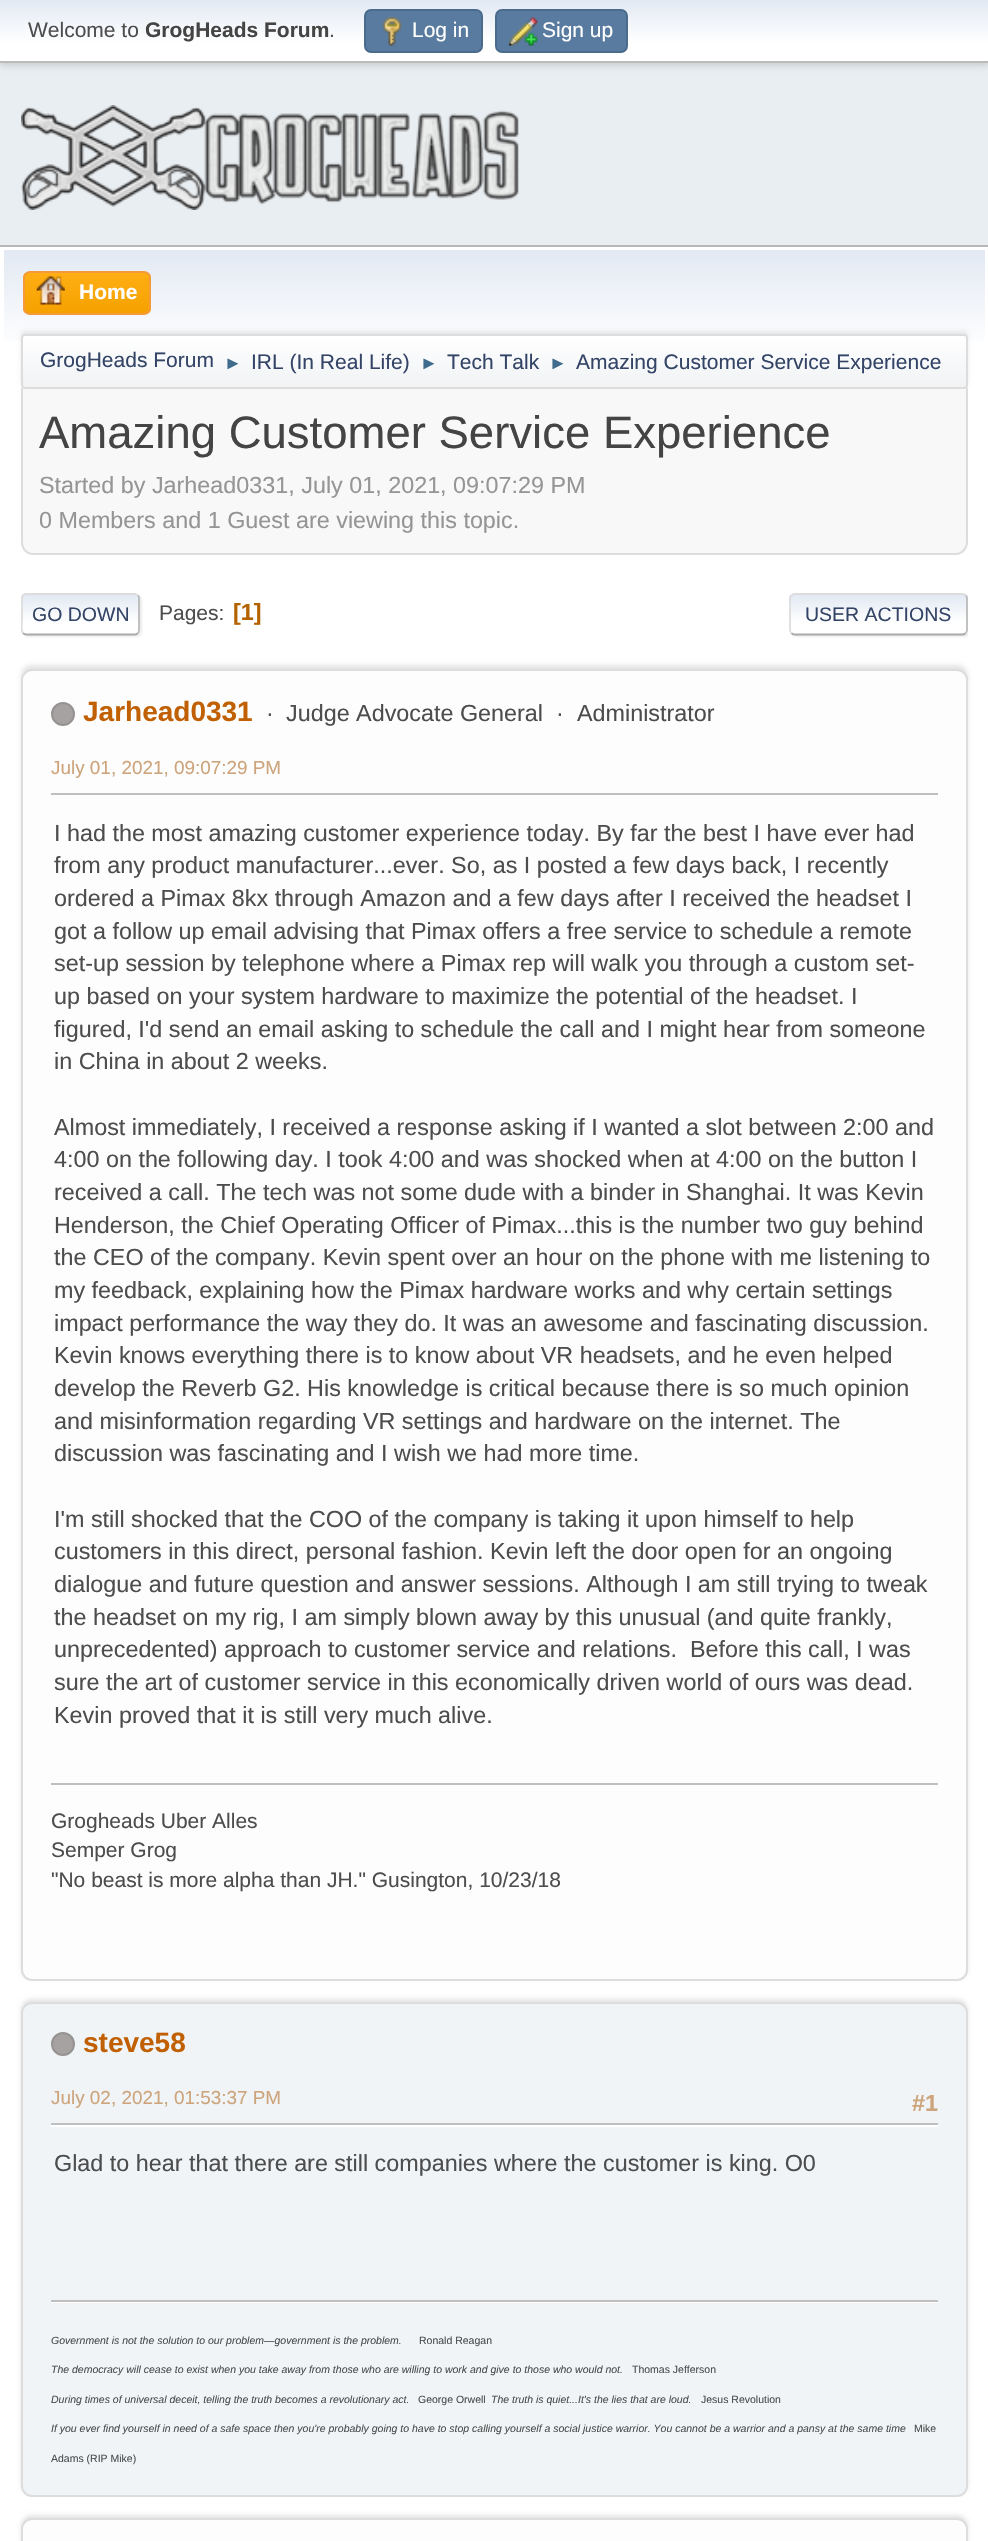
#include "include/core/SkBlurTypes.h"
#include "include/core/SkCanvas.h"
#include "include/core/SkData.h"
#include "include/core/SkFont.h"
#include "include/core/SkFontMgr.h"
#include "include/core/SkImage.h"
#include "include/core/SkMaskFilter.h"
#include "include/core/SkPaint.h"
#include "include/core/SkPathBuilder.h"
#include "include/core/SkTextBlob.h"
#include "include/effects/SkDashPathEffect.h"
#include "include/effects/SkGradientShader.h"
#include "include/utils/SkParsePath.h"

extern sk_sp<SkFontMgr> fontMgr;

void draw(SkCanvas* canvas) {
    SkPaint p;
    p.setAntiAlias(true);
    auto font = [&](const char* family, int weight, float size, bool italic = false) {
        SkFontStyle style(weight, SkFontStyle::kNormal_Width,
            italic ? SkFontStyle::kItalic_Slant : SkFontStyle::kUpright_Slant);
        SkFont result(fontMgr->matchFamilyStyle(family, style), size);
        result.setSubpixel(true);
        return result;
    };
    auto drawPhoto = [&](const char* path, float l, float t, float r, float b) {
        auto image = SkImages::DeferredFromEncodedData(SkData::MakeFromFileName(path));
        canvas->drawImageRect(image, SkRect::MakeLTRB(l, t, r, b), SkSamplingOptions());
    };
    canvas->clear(0xFFE9EEF2);
    p.setColor(0x29000000);
    p.setMaskFilter(SkMaskFilter::MakeBlur(kNormal_SkBlurStyle, 3.5f));
    canvas->drawRect(SkRect::MakeLTRB(0, 2, 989, 65), p);
    p.setMaskFilter(nullptr);
    {
        const SkColor colors[] = {0xFFE2E9F3, 0xFFFFFFFF};
        const float stops[] = {0, 0.7f};
        const SkPoint ends[] = {{494, 0}, {494, 61}};
        p.setShader(SkGradientShader::MakeLinear(ends, colors, stops, 2, SkTileMode::kClamp));
        p.setAlpha(255);
    }
    canvas->drawRect(SkRect::MakeLTRB(0, 0, 988, 61), p);
    p.setShader(nullptr);
    p.setColor(0xFFBBBBBB);
    canvas->drawRect(SkRect::MakeLTRB(0, 61, 988, 63), p);
    auto font1 = font("Liberation Sans", 400, 21);
    p.setColor(0xFF4D4D4D);
    canvas->drawString("Welcome to", 28, 37, font1, p);
    auto font2 = font("Liberation Sans", 700, 21);
    p.setColor(0xFF444444);
    canvas->drawString("GrogHeads Forum", 145, 37, font2, p);
    p.setColor(0xFF4D4D4D);
    canvas->drawString(".", 329, 37, font1, p);
    p.setColor(0xFF597B9F);
    canvas->drawRoundRect(SkRect::MakeLTRB(365, 10, 482, 52), 6, 6, p);
    p.setStyle(SkPaint::kStroke_Style);
    p.setStrokeWidth(2);
    p.setColor(0xFF4A6B8C);
    canvas->drawRoundRect(SkRect::MakeLTRB(365, 10, 482, 52), 6, 6, p);
    drawPhoto("media/1.png", 382, 17, 402, 46);
    p.setStyle(SkPaint::kFill_Style);
    p.setColor(0xFFFFFFFF);
    canvas->drawString("Log in", 412, 37, font1, p);
    p.setColor(0xFF597B9F);
    canvas->drawRoundRect(SkRect::MakeLTRB(496, 10, 627, 52), 6, 6, p);
    p.setStyle(SkPaint::kStroke_Style);
    p.setColor(0xFF4A6B8C);
    canvas->drawRoundRect(SkRect::MakeLTRB(496, 10, 627, 52), 6, 6, p);
    drawPhoto("media/2.png", 509, 17, 538, 46);
    p.setStyle(SkPaint::kFill_Style);
    p.setColor(0xFFFFFFFF);
    canvas->drawString("Sign up", 542, 37, font1, p);
    drawPhoto("media/3.png", 21, 105, 519, 210);
    canvas->drawRect(SkRect::MakeLTRB(0, 247, 988, 2541), p);
    p.setColor(0xFFB8B8B8);
    canvas->drawRect(SkRect::MakeLTRB(0, 245, 988, 247), p);
    {
        const SkColor colors[] = {0xFFE2E9F3, 0xFFFFFFFF};
        const float stops[] = {0, 0.7f};
        const SkPoint ends[] = {{494, 250}, {494, 392}};
        p.setShader(SkGradientShader::MakeLinear(ends, colors, stops, 2, SkTileMode::kClamp));
        p.setAlpha(255);
    }
    canvas->drawRect(SkRect::MakeLTRB(4, 250, 985, 341), p);
    canvas->save();
    canvas->clipPath(SkPathBuilder().moveTo(30, 271).lineTo(144, 271).cubicTo(148, 271, 151, 274, 151, 278).lineTo(151, 308).cubicTo(151, 312, 148, 315, 144, 315).lineTo(30, 315).cubicTo(26, 315, 23, 312, 23, 308).lineTo(23, 278).cubicTo(23, 274, 26, 271, 30, 271).close().detach(), true);
    {
        const SkColor colors[] = {0xFFFFAE14, 0xFFF5A100};
        const float stops[] = {0, 1};
        const SkPoint ends[] = {{87, 273}, {87, 313}};
        p.setShader(SkGradientShader::MakeLinear(ends, colors, stops, 2, SkTileMode::kClamp));
        p.setAlpha(255);
    }
    canvas->drawRect(SkRect::MakeLTRB(23, 273, 151, 313), p);
    canvas->restore();
    p.setStyle(SkPaint::kStroke_Style);
    p.setShader(nullptr);
    p.setColor(0xFFF49A3A);
    canvas->drawRoundRect(SkRect::MakeLTRB(24, 272, 150, 314), 6, 6, p);
    drawPhoto("media/4.png", 36, 276, 65, 305);
    p.setStyle(SkPaint::kFill_Style);
    p.setColor(0xFFFFFFFF);
    canvas->drawString("Home", 79, 299, font2, p);
    p.setColor(0x14000000);
    p.setMaskFilter(SkMaskFilter::MakeBlur(kNormal_SkBlurStyle, 2));
    canvas->drawRoundRect(SkRect::MakeLTRB(21, 331, 968, 385), 4, 4, p);
    p.setMaskFilter(nullptr);
    canvas->save();
    canvas->clipPath(SkPathBuilder().moveTo(25, 334).lineTo(964, 334).cubicTo(966, 334, 968, 336, 968, 338).lineTo(968, 385).cubicTo(968, 387, 966, 389, 964, 389).lineTo(25, 389).cubicTo(23, 389, 21, 387, 21, 385).lineTo(21, 338).cubicTo(21, 336, 23, 334, 25, 334).close().detach(), true);
    {
        const SkColor colors[] = {0xFFFFFFFF, 0xFFF1F3F5};
        const float stops[] = {0, 0.95f};
        const SkPoint ends[] = {{494, 336}, {494, 387}};
        p.setShader(SkGradientShader::MakeLinear(ends, colors, stops, 2, SkTileMode::kClamp));
        p.setAlpha(255);
    }
    canvas->drawRect(SkRect::MakeLTRB(21, 336, 968, 387), p);
    canvas->restore();
    p.setStyle(SkPaint::kStroke_Style);
    p.setShader(nullptr);
    p.setColor(0xFFDDDDDD);
    canvas->drawRoundRect(SkRect::MakeLTRB(22, 335, 967, 388), 3, 3, p);
    p.setStyle(SkPaint::kFill_Style);
    p.setColor(0xFF334466);
    canvas->drawString("GrogHeads Forum", 40, 367, font1, p);
    auto font3 = font("Liberation Sans", 400, 18);
    p.setColor(0xFF3F6B8C);
    canvas->drawString("►", 224, 369, font3, p);
    p.setColor(0xFF334466);
    canvas->drawString("IRL (In Real Life)", 251, 369, font1, p);
    p.setColor(0xFF3F6B8C);
    canvas->drawString("►", 420, 369, font3, p);
    p.setColor(0xFF334466);
    canvas->drawString("Tech Talk", 447, 369, font1, p);
    p.setColor(0xFF3F6B8C);
    canvas->drawString("►", 549, 369, font3, p);
    p.setColor(0xFF334466);
    canvas->drawString("Amazing Customer Service Experience", 576, 369, font1, p);
    p.setColor(0xFFF8F8F8);
    canvas->drawPath(SkPathBuilder().moveTo(21, 389).lineTo(968, 389).lineTo(968, 543).cubicTo(968, 549.5f, 962.5f, 555, 956, 555).lineTo(33, 555).cubicTo(26.5f, 555, 21, 549.5f, 21, 543).close().detach(), p);
    p.setColor(0xFFDDDDDD);
    canvas->drawPath(SkPathBuilder(SkPathFillType::kEvenOdd).moveTo(21, 388).lineTo(968, 388).lineTo(968, 542).cubicTo(968, 549, 962, 555, 956, 555).lineTo(33, 555).cubicTo(26, 555, 21, 549, 21, 542).close().moveTo(23, 388).lineTo(966, 388).lineTo(966, 542).cubicTo(966, 548, 961, 553, 956, 553).lineTo(33, 553).cubicTo(27, 553, 23, 548, 23, 542).close().detach(), p);
    auto font4 = font("Liberation Sans", 400, 45.5f);
    p.setColor(0xFF444444);
    canvas->drawString("Amazing Customer Service Experience", 39, 448, font4, p);
    auto font5 = font("Liberation Sans", 400, 23.35f);
    p.setColor(0xFF959595);
    canvas->drawString("Started by Jarhead0331, July 01, 2021, 09:07:29 PM", 39, 493, font5, p);
    canvas->drawString("0 Members and 1 Guest are viewing this topic.", 39, 528, font5, p);
    p.setColor(0x91DDDDDD);
    p.setMaskFilter(SkMaskFilter::MakeBlur(kNormal_SkBlurStyle, 1));
    canvas->drawRoundRect(SkRect::MakeLTRB(23, 595, 142, 637), 5, 5, p);
    p.setMaskFilter(nullptr);
    p.setColor(0xFFFFFFFF);
    canvas->drawRoundRect(SkRect::MakeLTRB(21, 593, 140, 635), 5, 5, p);
    canvas->save();
    canvas->clipPath(SkPathBuilder().moveTo(26, 593).lineTo(135, 593).cubicTo(138, 593, 140, 595, 140, 598).lineTo(140, 630).cubicTo(140, 633, 138, 635, 135, 635).lineTo(26, 635).cubicTo(23, 635, 21, 633, 21, 630).lineTo(21, 598).cubicTo(21, 595, 23, 593, 26, 593).close().detach(), true);
    {
        const SkColor colors[] = {0xFFE2E9F3, 0xFFFFFFFF};
        const float stops[] = {0, 0.7f};
        const SkPoint ends[] = {{81, 595}, {81, 634}};
        p.setShader(SkGradientShader::MakeLinear(ends, colors, stops, 2, SkTileMode::kClamp));
        p.setAlpha(255);
    }
    canvas->drawRect(SkRect::MakeLTRB(21, 595, 140, 634), p);
    canvas->restore();
    p.setStyle(SkPaint::kStroke_Style);
    p.setStrokeWidth(1.8f);
    p.setShader(nullptr);
    p.setColor(0xFFBBBBBB);
    canvas->drawPath(SkPathBuilder().moveTo(138, 595.5f).cubicTo(138.5f, 596, 139, 597.5f, 139, 598.5f).lineTo(139, 630).cubicTo(139, 631, 138.5f, 632.5f, 138, 633).detach(), p);
    p.setColor(0xFFAAAAAA);
    canvas->drawPath(SkPathBuilder().moveTo(138, 633).cubicTo(137, 634, 136, 634.5f, 135, 634.5f).lineTo(26, 634.5f).cubicTo(25, 634.5f, 24, 634, 23, 633).detach(), p);
    canvas->save();
    canvas->clipRect(SkRect::MakeLTRB(21, 581, 968, 648));
    p.setColor(0xFFDDDDDD);
    canvas->drawPath(SkPathBuilder().moveTo(23, 633).cubicTo(20.5f, 630.5f, 22, 622.5f, 22, 619.5f).lineTo(22, 604).cubicTo(22, 600.5f, 21, 594, 26, 594).lineTo(135, 594).lineTo(138, 595.5f).detach(), p);
    canvas->restore();
    auto font6 = font("Liberation Sans", 400, 19.5f);
    p.setStyle(SkPaint::kFill_Style);
    p.setColor(0xFF334466);
    canvas->drawString("GO DOWN", 32, 621, font6, p);
    p.setColor(0xFF4D4D4D);
    canvas->drawString("Pages:", 159, 620, font1, p);
    auto font7 = font("Liberation Sans", 700, 23.35f);
    p.setColor(0xFFB46100);
    canvas->drawString("[1]", 233, 620, font7, p);
    canvas->save();
    canvas->clipRect(SkRect::MakeLTRB(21, 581, 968, 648));
    p.setColor(0x91DDDDDD);
    p.setMaskFilter(SkMaskFilter::MakeBlur(kNormal_SkBlurStyle, 1));
    canvas->drawRoundRect(SkRect::MakeLTRB(791, 595, 970, 637), 5, 5, p);
    p.setMaskFilter(nullptr);
    canvas->restore();
    p.setColor(0xFFFFFFFF);
    canvas->drawRoundRect(SkRect::MakeLTRB(789, 593, 968, 635), 5, 5, p);
    canvas->save();
    canvas->clipPath(SkPathBuilder().moveTo(794, 593).lineTo(963, 593).cubicTo(966, 593, 968, 595, 968, 598).lineTo(968, 630).cubicTo(968, 633, 966, 635, 963, 635).lineTo(794, 635).cubicTo(791, 635, 789, 633, 789, 630).lineTo(789, 598).cubicTo(789, 595, 791, 593, 794, 593).close().detach(), true);
    {
        const SkColor colors[] = {0xFFE2E9F3, 0xFFFFFFFF};
        const float stops[] = {0, 0.7f};
        const SkPoint ends[] = {{879, 595}, {879, 634}};
        p.setShader(SkGradientShader::MakeLinear(ends, colors, stops, 2, SkTileMode::kClamp));
        p.setAlpha(255);
    }
    canvas->drawRect(SkRect::MakeLTRB(789, 595, 968, 634), p);
    canvas->restore();
    p.setStyle(SkPaint::kStroke_Style);
    p.setShader(nullptr);
    p.setColor(0xFFBBBBBB);
    canvas->drawPath(SkPathBuilder().moveTo(965.5f, 595.5f).cubicTo(966.5f, 596, 967, 597.5f, 967, 598.5f).lineTo(967, 630).cubicTo(967, 631, 966.5f, 632.5f, 965.5f, 633).detach(), p);
    p.setColor(0xFFAAAAAA);
    canvas->drawPath(SkPathBuilder().moveTo(965.5f, 633).cubicTo(965, 634, 963.5f, 634.5f, 962.5f, 634.5f).lineTo(794.5f, 634.5f).cubicTo(793.5f, 634.5f, 792, 634, 791.5f, 633).detach(), p);
    p.setColor(0xFFDDDDDD);
    canvas->drawPath(SkPathBuilder().moveTo(791.5f, 633).cubicTo(790.5f, 632.5f, 790, 631, 790, 630).lineTo(790, 598.5f).cubicTo(790, 597.5f, 790.5f, 596, 791.5f, 595.5f).cubicTo(792, 594.5f, 793.5f, 594, 794.5f, 594).lineTo(962.5f, 594).cubicTo(963.5f, 594, 965, 594.5f, 965.5f, 595.5f).detach(), p);
    p.setStyle(SkPaint::kFill_Style);
    p.setColor(0xFF334466);
    canvas->drawString("USER ACTIONS", 805, 621, font6, p);
    p.setColor(0x1A000000);
    p.setMaskFilter(SkMaskFilter::MakeBlur(kNormal_SkBlurStyle, 2));
    canvas->drawRoundRect(SkRect::MakeLTRB(21, 665, 968, 1978), 11, 11, p);
    p.setMaskFilter(nullptr);
    p.setColor(0xFFFDFDFD);
    canvas->drawRoundRect(SkRect::MakeLTRB(22, 670, 967, 1980), 10, 10, p);
    p.setStyle(SkPaint::kStroke_Style);
    p.setStrokeWidth(2);
    p.setColor(0xFFDDDDDD);
    canvas->drawRoundRect(SkRect::MakeLTRB(22, 670, 967, 1980), 10, 10, p);
    p.setStyle(SkPaint::kFill_Style);
    p.setColor(0xFFA7A2A2);
    canvas->drawCircle(63, 714, 11, p);
    p.setStyle(SkPaint::kStroke_Style);
    p.setColor(0xFF969292);
    canvas->drawCircle(63, 714, 11, p);
    auto font8 = font("Liberation Sans", 700, 28);
    p.setStyle(SkPaint::kFill_Style);
    p.setColor(0xFFC06002);
    canvas->drawString("Jarhead0331", 83, 721, font8, p);
    p.setColor(0xFF4D4D4D);
    {
        const struct { const char* s; float x, y; } items[] = {
            {"·", 266, 721},
            {"Judge Advocate General", 286, 721},
            {"·", 556, 721},
            {"Administrator", 577, 721},
        };
        for (auto [s, x, y] : items) {
            canvas->drawString(s, x, y, font5, p);
        }
    }
    auto font9 = font("Liberation Sans", 400, 18.9f);
    p.setColor(0xFFCDA47B);
    canvas->drawString("July 01, 2021, 09:07:29 PM", 51, 774, font9, p);
    p.setColor(0xFFBFBFBF);
    canvas->drawRect(SkRect::MakeLTRB(51, 793, 938, 795), p);
    p.setColor(0xFF4D4D4D);
    {
        const struct { const char* s; float x, y; } items[] = {
            {"I had the most amazing customer experience today. By far the best I have ever had", 54, 841},
            {"from any product manufacturer...ever. So, as I posted a few days back, I recently", 54, 873},
            {"ordered a Pimax 8kx through Amazon and a few days after I received the headset I", 54, 906},
            {"got a follow up email advising that Pimax offers a free service to schedule a remote", 54, 939},
            {"set-up session by telephone where a Pimax rep will walk you through a custom set-", 54, 971},
            {"up based on your system hardware to maximize the potential of the headset. I", 54, 1004},
            {"figured, I'd send an email asking to schedule the call and I might hear from someone", 54, 1037},
            {"in China in about 2 weeks.", 54, 1069},
            {"Almost immediately, I received a response asking if I wanted a slot between 2:00 and", 54, 1135},
            {"4:00 on the following day. I took 4:00 and was shocked when at 4:00 on the button I", 54, 1167},
            {"received a call. The tech was not some dude with a binder in Shanghai. It was Kevin", 54, 1200},
            {"Henderson, the Chief Operating Officer of Pimax...this is the number two guy behind", 54, 1233},
            {"the CEO of the company. Kevin spent over an hour on the phone with me listening to", 54, 1265},
            {"my feedback, explaining how the Pimax hardware works and why certain settings", 54, 1298},
            {"impact performance the way they do. It was an awesome and fascinating discussion.", 54, 1331},
            {"Kevin knows everything there is to know about VR headsets, and he even helped", 54, 1363},
            {"develop the Reverb G2. His knowledge is critical because there is so much opinion", 54, 1396},
            {"and misinformation regarding VR settings and hardware on the internet. The", 54, 1429},
            {"discussion was fascinating and I wish we had more time.", 54, 1461},
            {"I'm still shocked that the COO of the company is taking it upon himself to help", 54, 1527},
            {"customers in this direct, personal fashion. Kevin left the door open for an ongoing", 54, 1559},
            {"dialogue and future question and answer sessions. Although I am still trying to tweak", 54, 1592},
            {"the headset on my rig, I am simply blown away by this unusual (and quite frankly,", 54, 1625},
            {"unprecedented) approach to customer service and relations.  Before this call, I was", 54, 1657},
            {"sure the art of customer service in this economically driven world of ours was dead.", 54, 1690},
            {"Kevin proved that it is still very much alive.", 54, 1723},
        };
        for (auto [s, x, y] : items) {
            canvas->drawString(s, x, y, font5, p);
        }
    }
    p.setColor(0xFFBFBFBF);
    canvas->drawRect(SkRect::MakeLTRB(51, 1783, 938, 1785), p);
    p.setColor(0xFF4D4D4D);
    {
        const struct { const char* s; float x, y; } items[] = {
            {"Grogheads Uber Alles", 51, 1828},
            {"Semper Grog", 51, 1857},
            {"\"No beast is more alpha than JH.\" Gusington, 10/23/18", 51, 1887},
        };
        for (auto [s, x, y] : items) {
            canvas->drawString(s, x, y, font1, p);
        }
    }
    p.setColor(0x1A000000);
    p.setMaskFilter(SkMaskFilter::MakeBlur(kNormal_SkBlurStyle, 2));
    canvas->drawRoundRect(SkRect::MakeLTRB(21, 1999, 968, 2494), 11, 11, p);
    p.setMaskFilter(nullptr);
    p.setColor(0xFFF0F4F7);
    canvas->drawRoundRect(SkRect::MakeLTRB(22, 2003, 967, 2496), 10, 10, p);
    p.setStyle(SkPaint::kStroke_Style);
    p.setColor(0xFFDDDDDD);
    canvas->drawRoundRect(SkRect::MakeLTRB(22, 2003, 967, 2496), 10, 10, p);
    p.setStyle(SkPaint::kFill_Style);
    p.setColor(0xFFA7A2A2);
    canvas->drawCircle(63, 2044, 11, p);
    p.setStyle(SkPaint::kStroke_Style);
    p.setColor(0xFF969292);
    canvas->drawCircle(63, 2044, 11, p);
    p.setStyle(SkPaint::kFill_Style);
    p.setColor(0xFFC06002);
    canvas->drawString("steve58", 83, 2052, font8, p);
    p.setColor(0xFFCDA47B);
    canvas->drawString("July 02, 2021, 01:53:37 PM", 51, 2104, font9, p);
    canvas->drawString("#1", 912, 2111, font7, p);
    p.setColor(0xFFFFFFFF);
    canvas->drawRect(SkRect::MakeLTRB(51, 2125, 938, 2127), p);
    p.setColor(0xFFBFBFBF);
    canvas->drawRect(SkRect::MakeLTRB(51, 2123, 938, 2125), p);
    p.setColor(0xFF4D4D4D);
    canvas->drawString("Glad to hear that there are still companies where the customer is king. O0", 54, 2171, font5, p);
    p.setColor(0xFFFFFFFF);
    canvas->drawRect(SkRect::MakeLTRB(51, 2302, 938, 2303), p);
    p.setColor(0xFFBFBFBF);
    canvas->drawRect(SkRect::MakeLTRB(51, 2300, 938, 2302), p);
    auto font10 = font("Liberation Sans", 400, 10.5f, true);
    p.setColor(0xFF4D4D4D);
    canvas->drawString("Government is not the solution to our problem—government is the problem.", 51, 2344, font10, p);
    auto font11 = font("Liberation Sans", 400, 10.5f);
    canvas->drawString("Ronald Reagan", 419, 2344, font11, p);
    canvas->drawString("The democracy will cease to exist when you take away from those who are willing to work and give to those who would not.", 51, 2373, font10, p);
    canvas->drawString("Thomas Jefferson", 632, 2373, font11, p);
    canvas->drawString("During times of universal deceit, telling the truth becomes a revolutionary act.", 51, 2403, font10, p);
    canvas->drawString("George Orwell", 418, 2403, font11, p);
    canvas->drawString("The truth is quiet...It's the lies that are loud.", 491, 2403, font10, p);
    canvas->drawString("Jesus Revolution", 701, 2403, font11, p);
    canvas->drawString("If you ever find yourself in need of a safe space then you're probably going to have to stop calling yourself a social justice warrior. You cannot be a warrior and a pansy at the same time", 51, 2432, font10, p);
    canvas->drawString("Mike", 914, 2432, font11, p);
    canvas->drawString("Adams (RIP Mike)", 51, 2462, font11, p);
    p.setColor(0x1A000000);
    p.setMaskFilter(SkMaskFilter::MakeBlur(kNormal_SkBlurStyle, 2));
    canvas->drawRoundRect(SkRect::MakeLTRB(21, 2515, 968, 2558), 11, 11, p);
    p.setMaskFilter(nullptr);
    p.setColor(0xFFFDFDFD);
    canvas->drawRoundRect(SkRect::MakeLTRB(22, 2519, 967, 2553), 10, 10, p);
    p.setStyle(SkPaint::kStroke_Style);
    p.setColor(0xFFDDDDDD);
    canvas->drawRoundRect(SkRect::MakeLTRB(22, 2519, 967, 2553), 10, 10, p);
}
